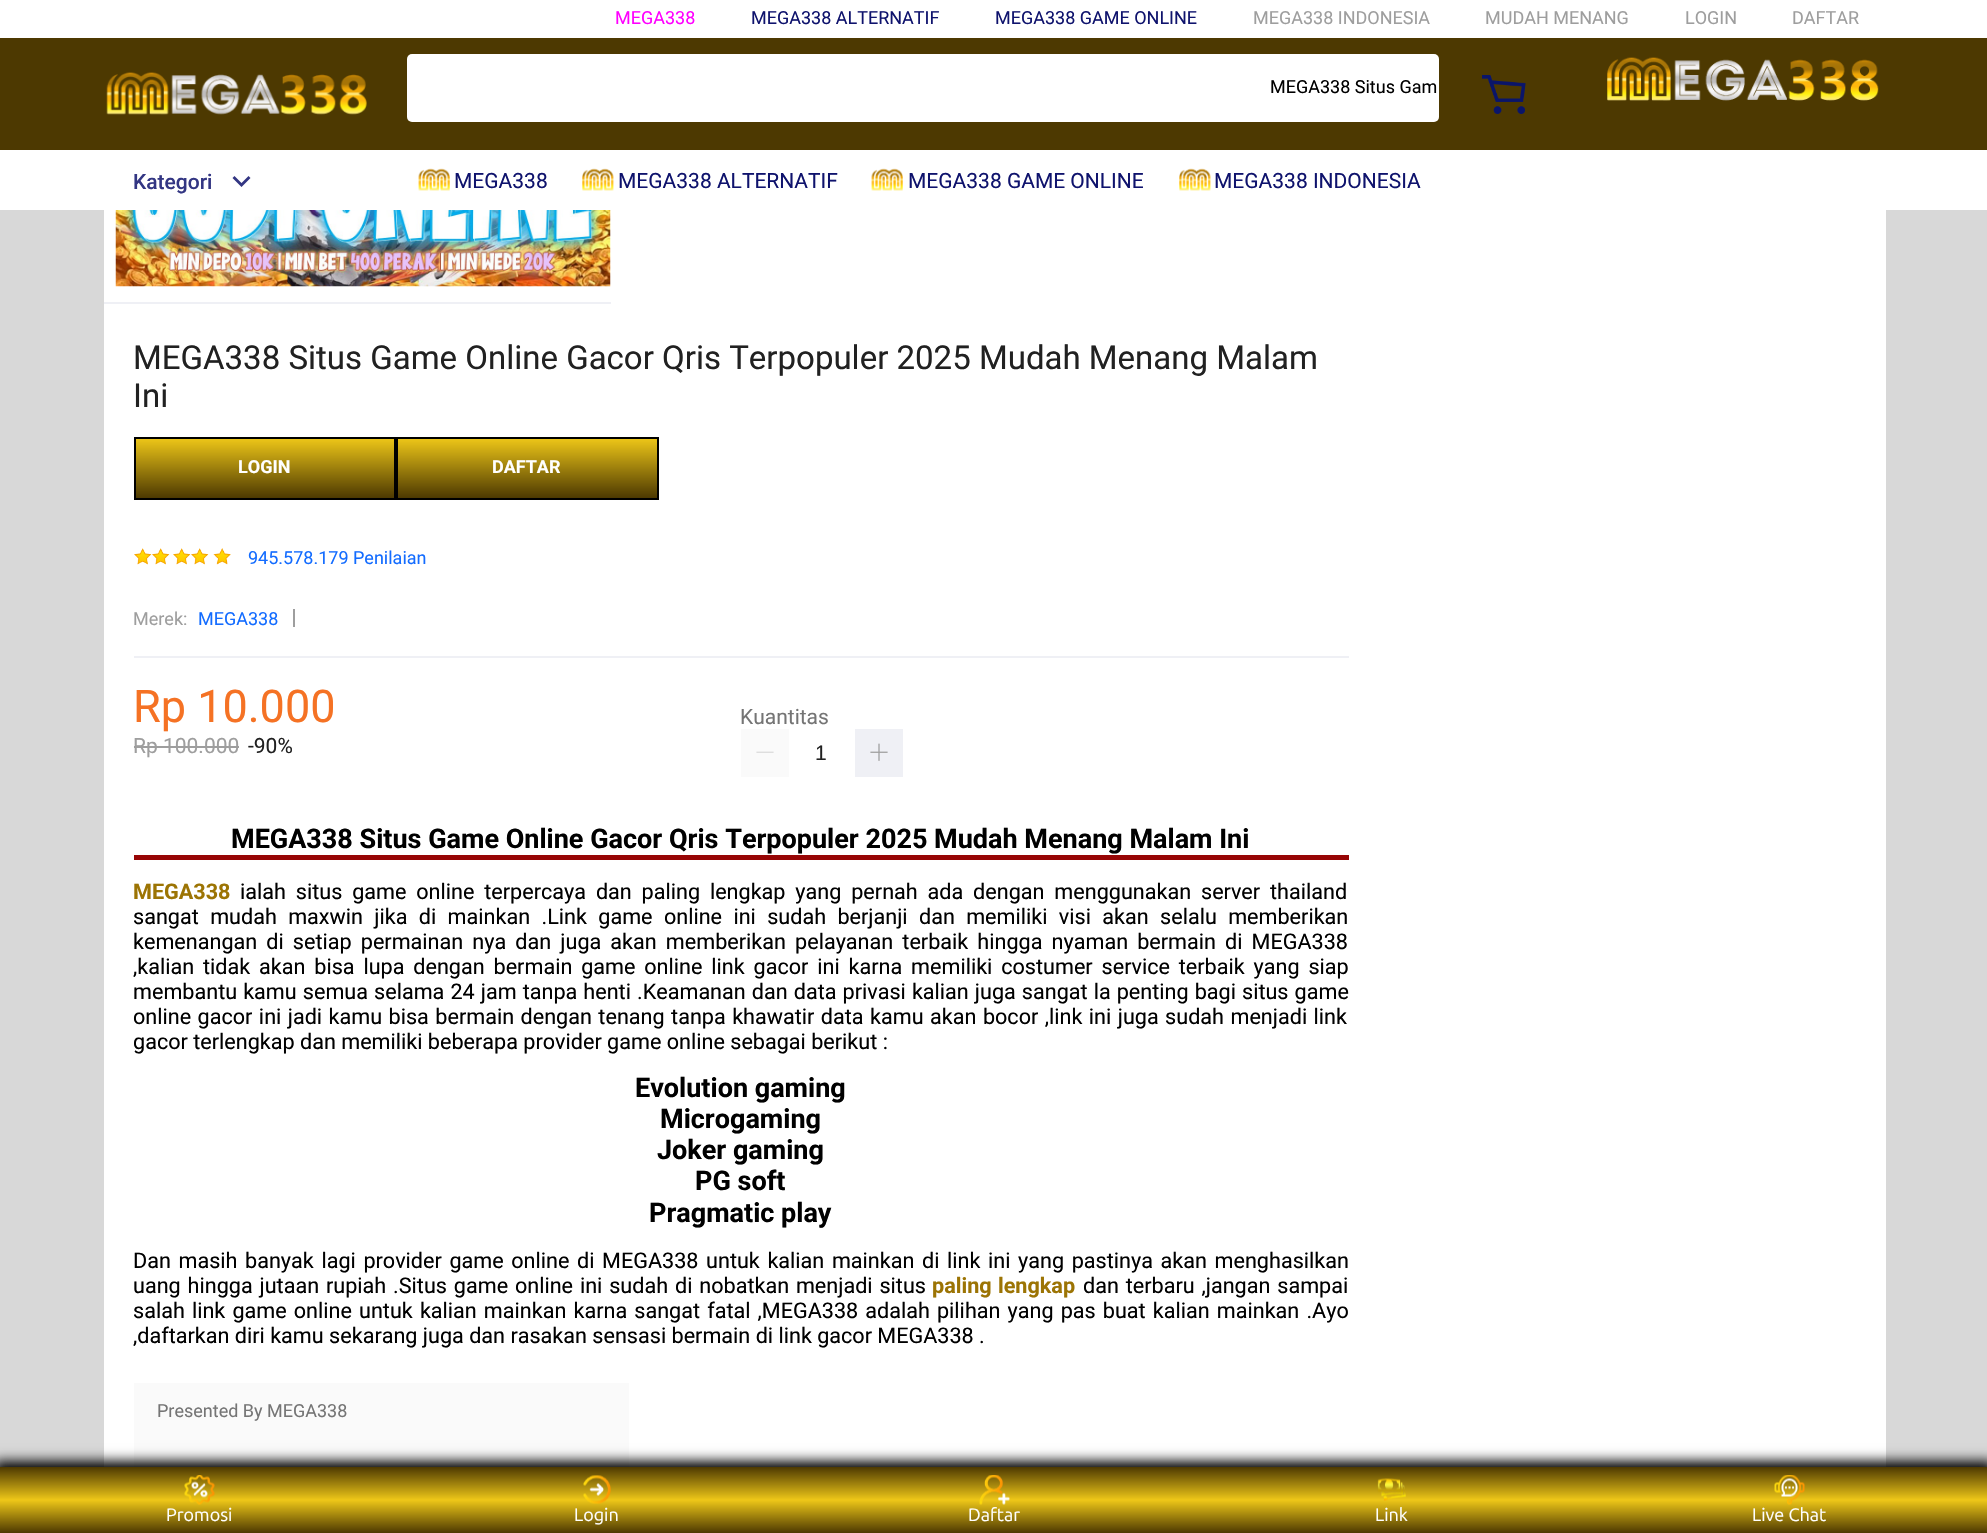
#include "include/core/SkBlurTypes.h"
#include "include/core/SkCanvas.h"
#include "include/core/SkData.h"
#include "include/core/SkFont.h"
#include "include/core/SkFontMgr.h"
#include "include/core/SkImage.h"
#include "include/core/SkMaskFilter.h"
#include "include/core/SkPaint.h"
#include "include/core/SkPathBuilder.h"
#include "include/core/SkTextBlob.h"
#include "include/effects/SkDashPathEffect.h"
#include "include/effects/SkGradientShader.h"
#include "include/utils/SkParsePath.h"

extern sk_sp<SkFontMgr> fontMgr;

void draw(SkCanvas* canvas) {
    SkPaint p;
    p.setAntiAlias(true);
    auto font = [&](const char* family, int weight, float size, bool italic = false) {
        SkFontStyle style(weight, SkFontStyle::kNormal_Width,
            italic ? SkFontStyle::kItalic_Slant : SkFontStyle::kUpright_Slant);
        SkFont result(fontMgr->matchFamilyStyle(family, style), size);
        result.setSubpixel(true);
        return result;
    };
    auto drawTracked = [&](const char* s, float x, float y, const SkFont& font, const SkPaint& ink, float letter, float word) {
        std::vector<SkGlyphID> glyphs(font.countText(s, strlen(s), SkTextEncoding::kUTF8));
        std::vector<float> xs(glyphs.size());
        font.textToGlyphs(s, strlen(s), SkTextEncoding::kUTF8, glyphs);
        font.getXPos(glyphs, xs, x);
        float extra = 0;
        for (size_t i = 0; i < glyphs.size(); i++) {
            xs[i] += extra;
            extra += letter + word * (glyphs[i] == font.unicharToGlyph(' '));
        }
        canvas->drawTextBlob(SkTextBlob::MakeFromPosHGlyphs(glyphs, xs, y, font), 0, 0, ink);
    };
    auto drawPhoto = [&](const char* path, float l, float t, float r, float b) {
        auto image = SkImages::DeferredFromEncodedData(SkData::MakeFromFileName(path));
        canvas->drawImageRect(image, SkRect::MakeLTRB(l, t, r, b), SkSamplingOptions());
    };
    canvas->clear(0xFFD8D8D8);
    p.setColor(0xFFFFFFFF);
    canvas->drawRect(SkRect::MakeLTRB(0, 0, 1987, 38), p);
    auto font1 = font("Roboto", 400, 18);
    p.setColor(0xFFFF00FF);
    canvas->drawString("MEGA338", 615, 24, font1, p);
    p.setColor(0xFF0F136D);
    canvas->drawString("MEGA338 ALTERNATIF", 751, 24, font1, p);
    canvas->drawString("MEGA338 GAME ONLINE", 995, 24, font1, p);
    p.setColor(0xFF9E9E9E);
    {
        const struct { const char* s; float x, y; } items[] = {
            {"MEGA338 INDONESIA", 1253, 24},
            {"MUDAH MENANG", 1485, 24},
            {"LOGIN", 1685, 24},
            {"DAFTAR", 1792, 24},
        };
        for (auto [s, x, y] : items) {
            canvas->drawString(s, x, y, font1, p);
        }
    }
    p.setColor(0xFF4D3901);
    canvas->drawRect(SkRect::MakeLTRB(0, 38, 1987, 150), p);
    drawPhoto("media/1.png", 106, 72, 367, 115);
    p.setColor(0xFFFFFFFF);
    canvas->drawRoundRect(SkRect::MakeLTRB(407, 54, 1439, 122), 5, 5, p);
    p.setColor(0xFF000000);
    canvas->drawString("MEGA338 Situs Gam", 1270, 93, font1, p);
    drawPhoto("media/2.png", 1482, 75, 1526, 114);
    drawPhoto("media/3.png", 1607, 57, 1879, 101);
    p.setColor(0xFFFFFFFF);
    canvas->drawRect(SkRect::MakeLTRB(0, 150, 1987, 210), p);
    auto font2 = font("Roboto", 500, 21);
    p.setColor(0xFF333683);
    canvas->drawString("Kategori", 133, 189, font2, p);
    canvas->drawPath(SkPathBuilder().moveTo(248.5f, 176).lineTo(250.5f, 178).lineTo(241.5f, 187).lineTo(232.5f, 178).lineTo(234.5f, 176).lineTo(241.5f, 183).close().detach(), p);
    drawPhoto("media/4.png", 418, 168, 450, 191);
    auto font3 = font("Roboto", 400, 21);
    p.setColor(0xFF0F136D);
    canvas->drawString("MEGA338", 454, 188, font3, p);
    drawPhoto("media/5.png", 582, 168, 614, 191);
    canvas->drawString("MEGA338 ALTERNATIF", 618, 188, font3, p);
    drawPhoto("media/6.png", 871, 168, 903, 191);
    canvas->drawString("MEGA338 GAME ONLINE", 908, 188, font3, p);
    drawPhoto("media/5.png", 1179, 168, 1211, 191);
    canvas->drawString("MEGA338 INDONESIA", 1214, 188, font3, p);
    p.setColor(0xFFFFFFFF);
    canvas->drawRect(SkRect::MakeLTRB(104, 210, 1886, 1467), p);
    p.setColor(0xFFEFF0F5);
    canvas->drawRect(SkRect::MakeLTRB(104, 302, 611, 304), p);
    drawPhoto("media/7.png", 115, 210, 611, 287);
    auto font4 = font("Roboto", 400, 33);
    p.setColor(0xFF212121);
    canvas->drawString("MEGA338 Situs Game Online Gacor Qris Terpopuler 2025 Mudah Menang Malam", 133, 369, font4, p);
    canvas->drawString("Ini", 133, 407, font4, p);
    {
        const SkColor colors[] = {0xFFEEC718, 0xFF4D3901};
        const float stops[] = {0, 1};
        const SkPoint ends[] = {{265, 438}, {265, 498}};
        p.setShader(SkGradientShader::MakeLinear(ends, colors, stops, 2, SkTileMode::kClamp));
        p.setAlpha(255);
    }
    canvas->drawRect(SkRect::MakeLTRB(136, 439, 394, 498), p);
    p.setStyle(SkPaint::kStroke_Style);
    p.setStrokeWidth(2);
    p.setShader(nullptr);
    p.setColor(0xFF000000);
    canvas->drawRect(SkRect::MakeLTRB(135, 438, 395, 499), p);
    auto font5 = font("Roboto", 700, 18);
    p.setStyle(SkPaint::kFill_Style);
    p.setColor(0xFFFFFFFF);
    canvas->drawString("LOGIN", 238, 473, font5, p);
    {
        const SkColor colors[] = {0xFFEEC718, 0xFF4D3901};
        const float stops[] = {0, 1};
        const SkPoint ends[] = {{527, 438}, {527, 498}};
        p.setShader(SkGradientShader::MakeLinear(ends, colors, stops, 2, SkTileMode::kClamp));
        p.setAlpha(255);
    }
    canvas->drawRect(SkRect::MakeLTRB(398, 439, 657, 498), p);
    p.setStyle(SkPaint::kStroke_Style);
    p.setShader(nullptr);
    p.setColor(0xFF000000);
    canvas->drawRect(SkRect::MakeLTRB(397, 438, 658, 499), p);
    p.setStyle(SkPaint::kFill_Style);
    p.setColor(0xFFFFFFFF);
    canvas->drawString("DAFTAR", 492, 473, font5, p);
    drawPhoto("media/8.png", 134, 548, 152, 565);
    drawPhoto("media/8.png", 152, 548, 170, 565);
    drawPhoto("media/8.png", 173, 548, 191, 565);
    drawPhoto("media/8.png", 191, 548, 209, 565);
    drawPhoto("media/9.png", 213, 548, 231, 565);
    p.setColor(0xFF136CFF);
    canvas->drawString("945.578.179 Penilaian", 248, 564, font1, p);
    p.setColor(0xFFEFF0F5);
    canvas->drawRect(SkRect::MakeLTRB(134, 656, 1349, 658), p);
    p.setColor(0xFF9E9E9E);
    canvas->drawString("Merek:", 133, 625, font1, p);
    p.setColor(0xFF136CFF);
    canvas->drawString("MEGA338", 198, 625, font1, p);
    p.setColor(0xFF9E9E9E);
    canvas->drawRect(SkRect::MakeLTRB(293, 609, 295, 627), p);
    auto font6 = font("Roboto", 400, 45);
    p.setColor(0xFFF57224);
    canvas->drawString("Rp 10.000", 133, 722, font6, p);
    p.setColor(0xFF9E9E9E);
    canvas->drawString("Rp 100.000", 133, 753, font3, p);
    canvas->drawRect(SkRect::MakeLTRB(134, 746, 239, 748), p);
    p.setColor(0xFF212121);
    canvas->drawString("-90%", 248, 753, font3, p);
    p.setColor(0xFF757575);
    canvas->drawString("Kuantitas", 740, 724, font3, p);
    p.setColor(0xFFFAFAFA);
    canvas->drawRect(SkRect::MakeLTRB(741, 729, 789, 777), p);
    drawPhoto("media/10.png", 756, 751, 774, 753);
    p.setColor(0xFFEFF0F5);
    canvas->drawRect(SkRect::MakeLTRB(855, 729, 903, 777), p);
    drawPhoto("media/11.png", 870, 743, 888, 761);
    auto font7 = font("Liberation Sans", 400, 21);
    p.setColor(0xFF212121);
    canvas->drawString("1", 815, 760, font7, p);
    p.setColor(0xFF970505);
    canvas->drawRect(SkRect::MakeLTRB(134, 855, 1349, 860), p);
    auto font8 = font("Roboto", 700, 27);
    p.setColor(0xFF000000);
    canvas->drawString("MEGA338 Situs Game Online Gacor Qris Terpopuler 2025 Mudah Menang Malam Ini", 231, 848, font8, p);
    auto font9 = font("Roboto", 700, 21.6f);
    p.setColor(0xFF9C7404);
    canvas->drawString("MEGA338", 133, 899, font9, p);
    auto font10 = font("Roboto", 400, 21.6f);
    p.setColor(0xFF000000);
    drawTracked("ialah situs game online terpercaya dan paling lengkap yang pernah ada dengan menggunakan server thailand", 240, 899, font10, p, 0, 4.5f);
    drawTracked("sangat mudah maxwin jika di mainkan .Link game online ini sudah berjanji dan memiliki visi akan selalu memberikan", 133, 924, font10, p, 0, 6);
    drawTracked("kemenangan di setiap permainan nya dan juga akan memberikan pelayanan terbaik hingga nyaman bermain di MEGA338", 133, 949, font10, p, 0, 3.75f);
    drawTracked(",kalian tidak akan bisa lupa dengan bermain game online link gacor ini karna memiliki costumer service terbaik yang siap", 133, 974, font10, p, 0, 3.5f);
    drawTracked("membantu kamu semua selama 24 jam tanpa henti .Keamanan dan data privasi kalian juga sangat la penting bagi situs game", 133, 999, font10, p, 0, 0.7f);
    drawTracked("online gacor ini jadi kamu bisa bermain dengan tenang tanpa khawatir data kamu akan bocor ,link ini juga sudah menjadi link", 133, 1024, font10, p, 0, 1.1f);
    canvas->drawString("gacor terlengkap dan memiliki beberapa provider game online sebagai berikut :", 133, 1049, font10, p);
    {
        const struct { const char* s; float x, y; } items[] = {
            {"Evolution gaming", 635, 1097},
            {"Microgaming", 660, 1128},
            {"Joker gaming", 657, 1159},
            {"PG soft", 695, 1190},
            {"Pragmatic play", 649, 1222},
        };
        for (auto [s, x, y] : items) {
            canvas->drawString(s, x, y, font8, p);
        }
    }
    drawTracked("Dan masih banyak lagi provider game online di MEGA338 untuk kalian mainkan di link ini yang pastinya akan menghasilkan", 133, 1268, font10, p, 0, 2.25f);
    drawTracked("uang hingga jutaan rupiah .Situs game online ini sudah di nobatkan menjadi situs", 133, 1293, font10, p, 0, 1.5f);
    p.setColor(0xFF9C7404);
    drawTracked("paling lengkap", 932, 1293, font9, p, 0, 1);
    p.setColor(0xFF000000);
    drawTracked("dan terbaru ,jangan sampai", 1083, 1293, font10, p, 0, 1.5f);
    drawTracked("salah link game online untuk kalian mainkan karna sangat fatal ,MEGA338 adalah pilihan yang pas buat kalian mainkan .Ayo", 133, 1318, font10, p, 0, 1.75f);
    canvas->drawString(",daftarkan diri kamu sekarang juga dan rasakan sensasi bermain di link gacor MEGA338 .", 133, 1343, font10, p);
    p.setColor(0xFFFAFAFA);
    canvas->drawRect(SkRect::MakeLTRB(134, 1383, 629, 1467), p);
    p.setColor(0xFF757575);
    canvas->drawString("Presented By MEGA338", 157, 1417, font1, p);
    p.setColor(0xFF000000);
    p.setMaskFilter(SkMaskFilter::MakeBlur(kNormal_SkBlurStyle, 6));
    canvas->drawRect(SkRect::MakeLTRB(-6, 1461, 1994, 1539), p);
    p.setMaskFilter(nullptr);
    {
        const SkColor colors[] = {0xFF4D3901, 0xFFEEC718, 0xFF4D3901};
        const float stops[] = {0, 0.5f, 1};
        const SkPoint ends[] = {{994, 1467}, {994, 1533}};
        p.setShader(SkGradientShader::MakeLinear(ends, colors, stops, 3, SkTileMode::kClamp));
        p.setAlpha(255);
    }
    canvas->drawRect(SkRect::MakeLTRB(0, 1467, 1987, 1533), p);
    drawPhoto("media/12.png", 184, 1475, 215, 1505);
    auto font11 = font("Ubuntu", 400, 18);
    p.setShader(nullptr);
    p.setColor(0xFFFFFFFF);
    canvas->drawString("Promosi", 166, 1521, font11, p);
    drawPhoto("media/13.png", 583, 1475, 611, 1504);
    canvas->drawString("Login", 574, 1521, font11, p);
    drawPhoto("media/14.png", 979, 1475, 1010, 1505);
    canvas->drawString("Daftar", 968, 1521, font11, p);
    drawPhoto("media/15.png", 1377, 1478, 1406, 1501);
    canvas->drawString("Link", 1375, 1521, font11, p);
    drawPhoto("media/16.png", 1774, 1475, 1805, 1505);
    canvas->drawString("Live Chat", 1752, 1521, font11, p);
}
